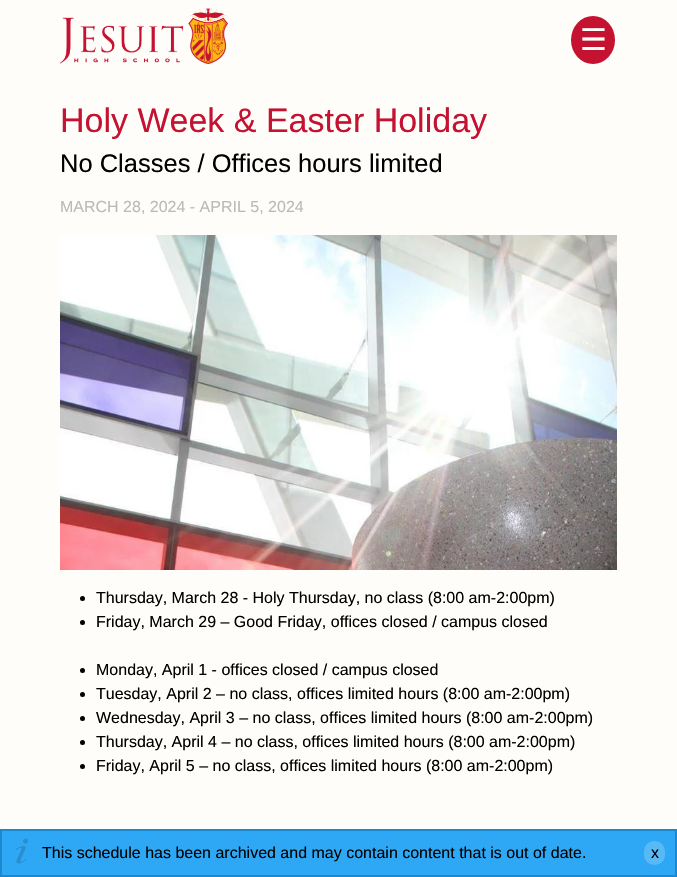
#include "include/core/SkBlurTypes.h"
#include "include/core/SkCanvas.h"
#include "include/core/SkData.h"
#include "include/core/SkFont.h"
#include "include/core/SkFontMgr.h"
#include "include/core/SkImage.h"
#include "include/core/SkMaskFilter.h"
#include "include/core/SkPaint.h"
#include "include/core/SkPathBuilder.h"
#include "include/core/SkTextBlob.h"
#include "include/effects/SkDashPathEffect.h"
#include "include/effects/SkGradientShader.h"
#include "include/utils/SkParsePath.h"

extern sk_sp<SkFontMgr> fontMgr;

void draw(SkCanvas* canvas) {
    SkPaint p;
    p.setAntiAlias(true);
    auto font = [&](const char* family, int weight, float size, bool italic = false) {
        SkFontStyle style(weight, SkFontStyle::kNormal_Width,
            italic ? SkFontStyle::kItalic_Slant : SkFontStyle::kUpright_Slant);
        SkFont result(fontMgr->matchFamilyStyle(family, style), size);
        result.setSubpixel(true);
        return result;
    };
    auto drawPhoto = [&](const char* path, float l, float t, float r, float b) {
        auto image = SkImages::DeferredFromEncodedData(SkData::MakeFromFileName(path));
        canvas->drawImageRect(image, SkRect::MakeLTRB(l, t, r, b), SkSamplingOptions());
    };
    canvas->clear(0xFFFFFDFA);
    drawPhoto("media/1.png", 60, 8, 228, 64);
    p.setColor(0xFFC41230);
    canvas->drawOval(SkRect::MakeLTRB(571, 16, 615, 64), p);
    auto font1 = font("DejaVu Sans", 400, 30);
    p.setColor(0xFFFFFDFA);
    canvas->drawString("☰", 580, 50, font1, p);
    auto font2 = font("Liberation Sans", 400, 34);
    p.setColor(0xFFC41230);
    canvas->drawString("Holy Week & Easter Holiday", 60, 132, font2, p);
    auto font3 = font("Liberation Sans", 400, 25.5f);
    p.setColor(0xFF000000);
    canvas->drawString("No Classes / Offices hours limited", 60, 172, font3, p);
    auto font4 = font("Liberation Sans", 400, 16);
    p.setColor(0xFFBBBAB9);
    canvas->drawString("MARCH 28, 2024 - APRIL 5, 2024", 60, 212, font4, p);
    drawPhoto("media/2.png", 60, 235, 617, 570);
    p.setColor(0xFF000000);
    canvas->drawCircle(82.5f, 598.5f, 2.5f, p);
    canvas->drawString("Thursday, March 28 - Holy Thursday, no class (8:00 am-2:00pm)", 96, 603, font4, p);
    canvas->drawCircle(82.5f, 622.5f, 2.5f, p);
    canvas->drawString("Friday, March 29 – Good Friday, offices closed / campus closed", 96, 627, font4, p);
    canvas->drawCircle(82.5f, 670.5f, 2.5f, p);
    canvas->drawString("Monday, April 1 - offices closed / campus closed", 96, 675, font4, p);
    canvas->drawCircle(82.5f, 694.5f, 2.5f, p);
    canvas->drawString("Tuesday, April 2 – no class, offices limited hours (8:00 am-2:00pm)", 96, 699, font4, p);
    canvas->drawCircle(82.5f, 718.5f, 2.5f, p);
    canvas->drawString("Wednesday, April 3 – no class, offices limited hours (8:00 am-2:00pm)", 96, 723, font4, p);
    canvas->drawCircle(82.5f, 742.5f, 2.5f, p);
    canvas->drawString("Thursday, April 4 – no class, offices limited hours (8:00 am-2:00pm)", 96, 747, font4, p);
    canvas->drawCircle(82.5f, 766.5f, 2.5f, p);
    canvas->drawString("Friday, April 5 – no class, offices limited hours (8:00 am-2:00pm)", 96, 771, font4, p);
    p.setColor(0xFF2EA8F5);
    canvas->drawRect(SkRect::MakeLTRB(2, 831, 675, 875), p);
    drawPhoto("media/3.png", 16, 838, 28, 864);
    p.setStyle(SkPaint::kStroke_Style);
    p.setStrokeWidth(2);
    p.setColor(0xFF1A89CF);
    canvas->drawRect(SkRect::MakeLTRB(1, 830, 676, 876), p);
    p.setStyle(SkPaint::kFill_Style);
    p.setColor(0xFF000000);
    canvas->drawString("This schedule has been archived and may contain content that is out of date.", 42, 858, font4, p);
    p.setColor(0xFF58B9F7);
    canvas->drawRoundRect(SkRect::MakeLTRB(644, 841, 665, 865), 10, 10, p);
    p.setColor(0xFF000000);
    canvas->drawString("x", 651, 858, font4, p);
}
